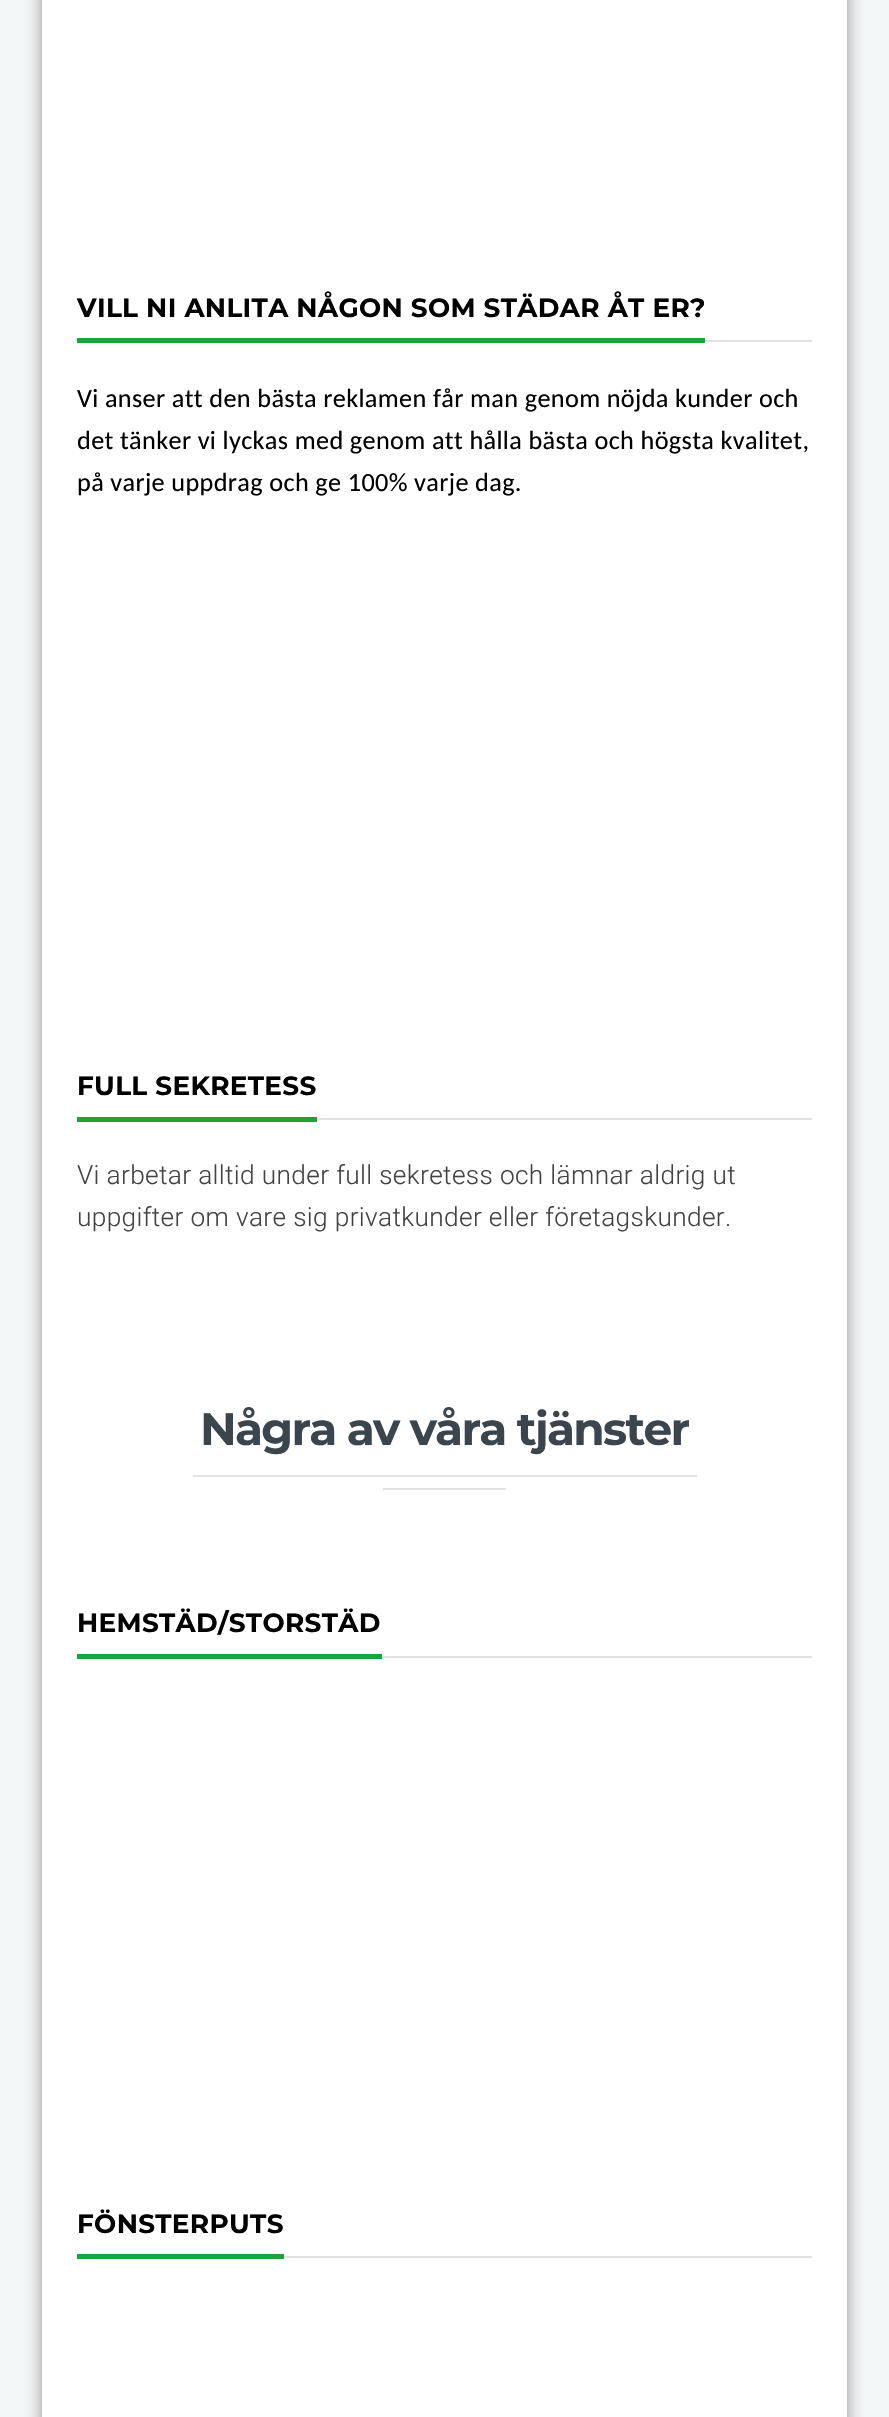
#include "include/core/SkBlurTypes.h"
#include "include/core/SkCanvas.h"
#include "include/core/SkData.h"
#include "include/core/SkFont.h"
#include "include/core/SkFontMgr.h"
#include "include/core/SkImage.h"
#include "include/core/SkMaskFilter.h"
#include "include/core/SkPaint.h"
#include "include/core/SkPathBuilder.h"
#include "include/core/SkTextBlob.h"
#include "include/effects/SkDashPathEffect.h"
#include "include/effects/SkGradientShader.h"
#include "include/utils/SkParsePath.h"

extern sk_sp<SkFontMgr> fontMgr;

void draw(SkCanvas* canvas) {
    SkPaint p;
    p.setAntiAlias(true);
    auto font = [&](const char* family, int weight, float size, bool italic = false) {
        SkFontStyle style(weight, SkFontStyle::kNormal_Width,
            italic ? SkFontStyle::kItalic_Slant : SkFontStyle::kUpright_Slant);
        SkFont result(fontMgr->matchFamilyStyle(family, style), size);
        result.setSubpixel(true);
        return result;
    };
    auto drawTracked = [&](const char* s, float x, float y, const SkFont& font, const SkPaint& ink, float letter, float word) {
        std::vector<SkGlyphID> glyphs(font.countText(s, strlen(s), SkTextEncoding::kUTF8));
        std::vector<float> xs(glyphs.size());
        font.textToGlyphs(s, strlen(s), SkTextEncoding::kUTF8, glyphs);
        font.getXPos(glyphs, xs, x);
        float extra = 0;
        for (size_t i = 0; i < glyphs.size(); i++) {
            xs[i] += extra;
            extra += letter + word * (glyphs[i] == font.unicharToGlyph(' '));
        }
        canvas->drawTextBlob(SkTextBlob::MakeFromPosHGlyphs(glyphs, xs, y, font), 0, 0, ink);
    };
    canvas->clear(0xFFF4F7F8);
    p.setColor(0x66000000);
    p.setMaskFilter(SkMaskFilter::MakeBlur(kNormal_SkBlurStyle, 8));
    canvas->drawRect(SkRect::MakeLTRB(42, -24, 847, 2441), p);
    p.setMaskFilter(nullptr);
    {
        const struct { float l, t, r, b; SkColor color; } items[] = {
            {42, 0, 847, 2417, 0xFFFFFFFF},
            {705, 340, 812, 342, 0xFFE1E1E1},
            {77, 338, 705, 343, 0xFF1AA439},
        };
        for (auto [l, t, r, b, color] : items) {
            p.setColor(color);
            canvas->drawRect(SkRect::MakeLTRB(l, t, r, b), p);
        }
    }
    auto font1 = font("Montserrat", 700, 26.25f);
    p.setColor(0xFF000000);
    drawTracked("VILL NI ANLITA NÅGON SOM STÄDAR ÅT ER?", 77, 317, font1, p, 0.35f, 0);
    auto font2 = font("Carlito", 400, 26.25f);
    {
        const struct { const char* s; float x, y; } items[] = {
            {"Vi anser att den bästa reklamen får man genom nöjda kunder och", 77, 407},
            {"det tänker vi lyckas med genom att hålla bästa och högsta kvalitet,", 77, 449},
            {"på varje uppdrag och ge 100% varje dag.", 77, 491},
        };
        for (auto [s, x, y] : items) {
            drawTracked(s, x, y, font2, p, 0.35f, 0);
        }
    }
    p.setColor(0xFFE1E1E1);
    canvas->drawRect(SkRect::MakeLTRB(317, 1118, 812, 1120), p);
    p.setColor(0xFF1AA439);
    canvas->drawRect(SkRect::MakeLTRB(77, 1117, 317, 1122), p);
    p.setColor(0xFF000000);
    drawTracked("FULL SEKRETESS", 77, 1095, font1, p, 0.35f, 0);
    auto font3 = font("Roboto", 300, 26.25f);
    p.setColor(0xFF424242);
    drawTracked("Vi arbetar alltid under full sekretess och lämnar aldrig ut", 77, 1184, font3, p, 0.35f, 0);
    drawTracked("uppgifter om vare sig privatkunder eller företagskunder.", 77, 1226, font3, p, 0.35f, 0);
    auto font4 = font("Montserrat", 700, 45.5f);
    p.setColor(0xFF3B454D);
    drawTracked("Några av våra tjänster", 200, 1445, font4, p, -1.75f, 0);
    {
        const struct { float l, t, r, b; SkColor color; } items[] = {
            {193, 1475, 697, 1477, 0xFFE3E3E3},
            {383, 1488, 506, 1490, 0xFFE3E3E3},
            {382, 1656, 812, 1658, 0xFFE1E1E1},
            {77, 1654, 382, 1659, 0xFF1AA439},
        };
        for (auto [l, t, r, b, color] : items) {
            p.setColor(color);
            canvas->drawRect(SkRect::MakeLTRB(l, t, r, b), p);
        }
    }
    p.setColor(0xFF000000);
    drawTracked("HEMSTÄD/STORSTÄD", 77, 1632, font1, p, 0.35f, 0);
    p.setColor(0xFFE1E1E1);
    canvas->drawRect(SkRect::MakeLTRB(284, 2256, 812, 2258), p);
    p.setColor(0xFF1AA439);
    canvas->drawRect(SkRect::MakeLTRB(77, 2254, 284, 2259), p);
    p.setColor(0xFF000000);
    drawTracked("FÖNSTERPUTS", 77, 2233, font1, p, 0.35f, 0);
}
